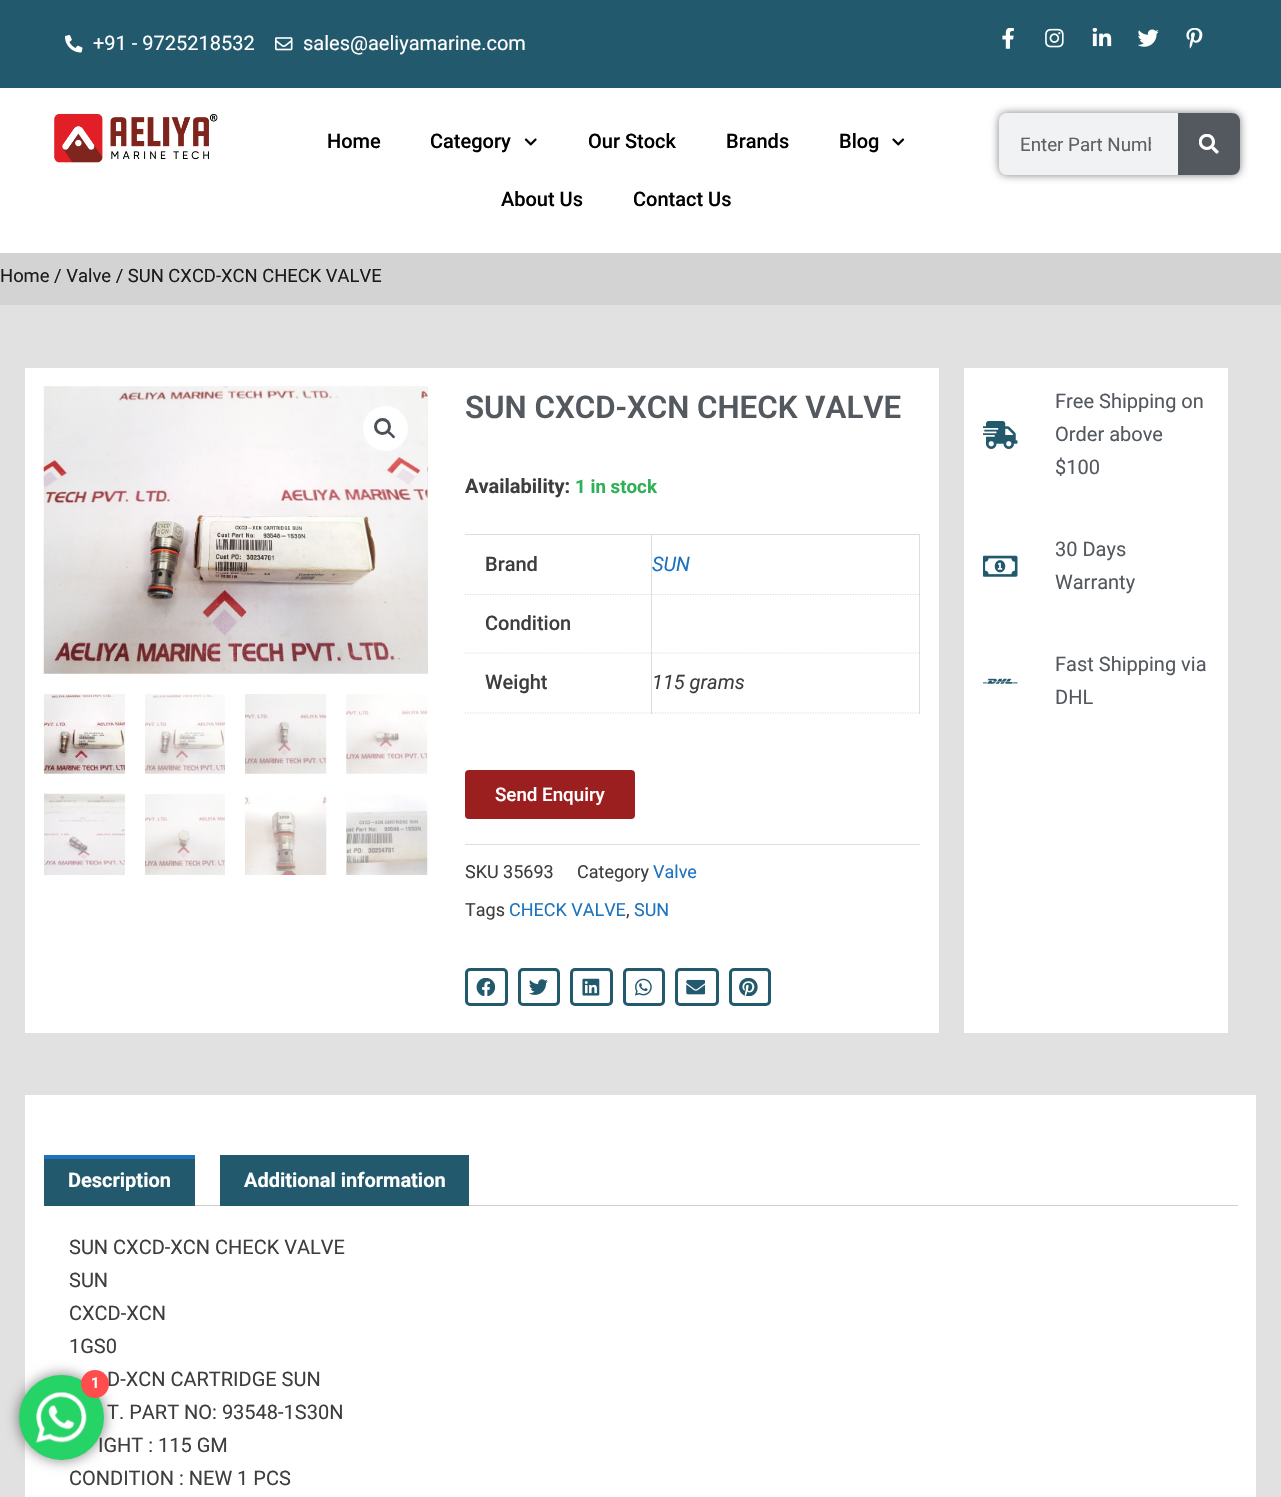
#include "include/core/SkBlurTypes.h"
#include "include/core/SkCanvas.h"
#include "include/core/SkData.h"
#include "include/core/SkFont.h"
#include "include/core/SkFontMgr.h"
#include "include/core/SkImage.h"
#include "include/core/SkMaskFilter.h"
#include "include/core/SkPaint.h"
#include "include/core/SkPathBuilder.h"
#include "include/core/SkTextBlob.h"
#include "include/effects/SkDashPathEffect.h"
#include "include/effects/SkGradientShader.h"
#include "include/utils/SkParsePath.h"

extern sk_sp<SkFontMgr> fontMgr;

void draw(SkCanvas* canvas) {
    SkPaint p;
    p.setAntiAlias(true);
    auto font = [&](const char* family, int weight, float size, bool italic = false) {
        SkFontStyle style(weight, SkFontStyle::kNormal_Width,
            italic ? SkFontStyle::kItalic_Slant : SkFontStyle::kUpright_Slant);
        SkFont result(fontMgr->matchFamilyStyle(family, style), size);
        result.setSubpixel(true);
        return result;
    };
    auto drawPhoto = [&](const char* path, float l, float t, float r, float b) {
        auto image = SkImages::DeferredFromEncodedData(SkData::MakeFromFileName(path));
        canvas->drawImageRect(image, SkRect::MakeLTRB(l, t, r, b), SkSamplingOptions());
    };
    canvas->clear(0xFFFFFFFF);
    p.setColor(0xFF23596C);
    canvas->drawRect(SkRect::MakeLTRB(0, 0, 1281, 88), p);
    drawPhoto("media/1.png", 65, 35, 83, 53);
    auto font1 = font("Roboto", 400, 20);
    p.setColor(0xFFFFFFFF);
    canvas->drawString("+91 - 9725218532", 93, 50, font1, p);
    drawPhoto("media/2.png", 275, 37, 293, 51);
    canvas->drawString("sales@aeliyamarine.com", 303, 50, font1, p);
    drawPhoto("media/3.png", 1002, 28, 1014, 49);
    drawPhoto("media/4.png", 1045, 28, 1064, 48);
    drawPhoto("media/5.png", 1092, 28, 1112, 47);
    drawPhoto("media/6.png", 1138, 29, 1159, 47);
    drawPhoto("media/7.png", 1186, 28, 1203, 49);
    drawPhoto("media/8.png", 54, 113, 218, 163);
    auto font2 = font("Roboto", 500, 20);
    p.setColor(0xFF000000);
    canvas->drawString("Home", 327, 148, font2, p);
    canvas->drawString("Category", 430, 148, font2, p);
    drawPhoto("media/9.png", 524, 138, 537, 146);
    {
        const struct { const char* s; float x, y; } items[] = {
            {"Our Stock", 588, 148},
            {"Brands", 726, 148},
            {"Blog", 839, 148},
        };
        for (auto [s, x, y] : items) {
            canvas->drawString(s, x, y, font2, p);
        }
    }
    drawPhoto("media/10.png", 892, 138, 905, 146);
    canvas->drawString("About Us", 501, 206, font2, p);
    canvas->drawString("Contact Us", 633, 206, font2, p);
    p.setColor(0x80000000);
    p.setMaskFilter(SkMaskFilter::MakeBlur(kNormal_SkBlurStyle, 4.5f));
    canvas->drawRoundRect(SkRect::MakeLTRB(999, 113, 1240, 175), 8, 8, p);
    p.setMaskFilter(nullptr);
    p.setColor(0xFFF1F2F3);
    canvas->drawRoundRect(SkRect::MakeLTRB(999, 113, 1240, 175), 8, 8, p);
    canvas->save();
    canvas->clipRect(SkRect::MakeLTRB(1020, 133, 1151, 155));
    auto font3 = font("Roboto", 400, 18.75f);
    p.setColor(0xFF606161);
    canvas->drawString("Enter Part Numb", 1020, 151, font3, p);
    canvas->restore();
    p.setColor(0xFF54595F);
    canvas->drawPath(SkPathBuilder().moveTo(1178, 113).lineTo(1232, 113).cubicTo(1236.5f, 113, 1240, 116.5f, 1240, 121).lineTo(1240, 167).cubicTo(1240, 171.5f, 1236.5f, 175, 1232, 175).lineTo(1178, 175).close().detach(), p);
    drawPhoto("media/11.png", 1199, 134, 1219, 154);
    p.setColor(0xFFD3D3D3);
    canvas->drawRect(SkRect::MakeLTRB(0, 253, 1281, 305), p);
    auto font4 = font("Roboto", 400, 18.4f);
    p.setColor(0xFF1B1B1B);
    canvas->drawString("Home / Valve / SUN CXCD-XCN CHECK VALVE", 0, 282, font4, p);
    p.setColor(0xFFE1E1E1);
    canvas->drawRect(SkRect::MakeLTRB(0, 305, 1281, 1497), p);
    p.setColor(0xFFFFFFFF);
    canvas->drawRect(SkRect::MakeLTRB(25, 368, 939, 1033), p);
    drawPhoto("media/13.png", 427, 386, 428, 674);
    drawPhoto("media/12.png", 43, 386, 428, 674);
    canvas->drawCircle(385.5f, 428.5f, 22.5f, p);
    p.setStyle(SkPaint::kStroke_Style);
    p.setStrokeWidth(3);
    p.setColor(0xFF4B4F58);
    canvas->drawCircle(382.5f, 426.5f, 7, p);
    p.setStyle(SkPaint::kFill_Style);
    canvas->drawPath(SkPathBuilder().moveTo(387.5f, 431).cubicTo(389, 429.5f, 391.5f, 433, 392, 433.5f).cubicTo(393, 434.5f, 396, 436.5f, 394.5f, 438).cubicTo(393.5f, 439.5f, 391, 436, 390.5f, 435.5f).cubicTo(389.5f, 434.5f, 386, 432.5f, 387.5f, 431).close().detach(), p);
    drawPhoto("media/14.png", 43, 694, 125, 774);
    drawPhoto("media/15.png", 145, 694, 225, 774);
    drawPhoto("media/16.png", 245, 694, 327, 774);
    drawPhoto("media/17.png", 346, 694, 428, 774);
    drawPhoto("media/18.png", 44, 793, 125, 875);
    drawPhoto("media/19.png", 145, 794, 225, 875);
    drawPhoto("media/20.png", 245, 795, 327, 875);
    drawPhoto("media/21.png", 346, 794, 428, 875);
    p.setColor(0xFFFFFFFF);
    canvas->drawRect(SkRect::MakeLTRB(964, 368, 1228, 1033), p);
    drawPhoto("media/22.png", 983, 421, 1018, 449);
    p.setColor(0xFF54595F);
    {
        const struct { const char* s; float x, y; } items[] = {
            {"Free Shipping on", 1055, 408},
            {"Order above", 1055, 441},
            {"$100", 1055, 474},
        };
        for (auto [s, x, y] : items) {
            canvas->drawString(s, x, y, font1, p);
        }
    }
    drawPhoto("media/23.png", 983, 555, 1018, 577);
    canvas->drawString("30 Days", 1055, 556, font1, p);
    canvas->drawString("Warranty", 1055, 589, font1, p);
    drawPhoto("media/24.png", 983, 678, 1018, 684);
    canvas->drawString("Fast Shipping via", 1055, 671, font1, p);
    canvas->drawString("DHL", 1055, 704, font1, p);
    auto font5 = font("Roboto", 600, 31.25f);
    canvas->drawString("SUN CXCD-XCN CHECK VALVE", 465, 418, font5, p);
    auto font6 = font("Roboto", 700, 20);
    p.setColor(0xFF3F3D3D);
    canvas->drawString("Availability:", 465, 493, font6, p);
    auto font7 = font("Roboto", 700, 18.75f);
    p.setColor(0xFF2FB157);
    canvas->drawString("1 in stock", 575, 493, font7, p);
    p.setColor(0xFFDDDDDD);
    canvas->drawRect(SkRect::MakeLTRB(465, 534, 920, 535), p);
    canvas->drawRect(SkRect::MakeLTRB(651, 535, 652, 595), p);
    p.setStyle(SkPaint::kStroke_Style);
    p.setStrokeWidth(1.2f);
    p.setPathEffect(SkDashPathEffect::Make({{1.25f, 1.25f}}, 0));
    canvas->drawPath(SkPathBuilder().moveTo(465, 594.5f).lineTo(652.5f, 594.5f).detach(), p);
    p.setPathEffect(nullptr);
    p.setStyle(SkPaint::kFill_Style);
    p.setColor(0xFF3F3D3D);
    canvas->drawString("Brand", 485, 571, font2, p);
    p.setColor(0xFFDDDDDD);
    canvas->drawRect(SkRect::MakeLTRB(919, 535, 920, 714), p);
    p.setStyle(SkPaint::kStroke_Style);
    p.setPathEffect(SkDashPathEffect::Make({{1.25f, 1.25f}}, 0));
    canvas->drawPath(SkPathBuilder().moveTo(652.5f, 594.5f).lineTo(920, 594.5f).detach(), p);
    p.setPathEffect(nullptr);
    auto font8 = font("Roboto", 400, 20, true);
    p.setStyle(SkPaint::kFill_Style);
    p.setColor(0xFF1E73BE);
    canvas->drawString("SUN", 652, 571, font8, p);
    p.setColor(0xFFDDDDDD);
    canvas->drawRect(SkRect::MakeLTRB(651, 595, 652, 714), p);
    p.setStyle(SkPaint::kStroke_Style);
    p.setPathEffect(SkDashPathEffect::Make({{1.25f, 1.25f}}, 0));
    canvas->drawPath(SkPathBuilder().moveTo(465, 653).lineTo(652.5f, 653).detach(), p);
    p.setPathEffect(nullptr);
    p.setStyle(SkPaint::kFill_Style);
    p.setColor(0xFF3F3D3D);
    canvas->drawString("Condition", 485, 630, font2, p);
    p.setStyle(SkPaint::kStroke_Style);
    p.setColor(0xFFDDDDDD);
    p.setPathEffect(SkDashPathEffect::Make({{1.25f, 1.25f}}, 0));
    canvas->drawPath(SkPathBuilder().moveTo(652.5f, 653).lineTo(920, 653).detach(), p);
    p.setPathEffect(nullptr);
    p.setPathEffect(SkDashPathEffect::Make({{1.25f, 1.25f}}, 0));
    canvas->drawPath(SkPathBuilder().moveTo(465, 713).lineTo(652.5f, 713).detach(), p);
    p.setPathEffect(nullptr);
    p.setStyle(SkPaint::kFill_Style);
    p.setColor(0xFF3F3D3D);
    canvas->drawString("Weight", 485, 689, font2, p);
    p.setStyle(SkPaint::kStroke_Style);
    p.setColor(0xFFDDDDDD);
    p.setPathEffect(SkDashPathEffect::Make({{1.25f, 1.25f}}, 0));
    canvas->drawPath(SkPathBuilder().moveTo(652.5f, 713).lineTo(920, 713).detach(), p);
    p.setPathEffect(nullptr);
    p.setStyle(SkPaint::kFill_Style);
    p.setColor(0xFF3F3D3D);
    canvas->drawString("115 grams", 652, 689, font8, p);
    p.setColor(0xFF9C1F1F);
    canvas->drawRoundRect(SkRect::MakeLTRB(465, 770, 635, 819), 4, 4, p);
    auto font9 = font("Roboto", 500, 18.75f);
    p.setColor(0xFFFFFFFF);
    canvas->drawString("Send Enquiry", 495, 801, font9, p);
    p.setColor(0xFFDDDDDD);
    canvas->drawRect(SkRect::MakeLTRB(465, 844, 920, 845), p);
    auto font10 = font("Roboto", 400, 18);
    p.setColor(0xFF3F3D3D);
    canvas->drawString("SKU 35693", 465, 878, font10, p);
    canvas->drawString("Category", 577, 878, font10, p);
    p.setColor(0xFF1E73BE);
    canvas->drawString("Valve", 653, 878, font10, p);
    p.setColor(0xFF3F3D3D);
    canvas->drawString("Tags", 465, 916, font10, p);
    p.setColor(0xFF1E73BE);
    canvas->drawString("CHECK VALVE", 509, 916, font10, p);
    p.setColor(0xFF3F3D3D);
    canvas->drawString(",", 626, 916, font10, p);
    p.setColor(0xFF1E73BE);
    canvas->drawString("SUN", 634, 916, font10, p);
    p.setStyle(SkPaint::kStroke_Style);
    p.setStrokeWidth(3);
    p.setColor(0xFF23596C);
    canvas->drawRoundRect(SkRect::MakeLTRB(466.5f, 969.5f, 506.5f, 1004.5f), 3.5f, 3.5f, p);
    drawPhoto("media/25.png", 476, 978, 495, 996);
    canvas->drawRoundRect(SkRect::MakeLTRB(519.5f, 969.5f, 558.5f, 1004.5f), 3.5f, 3.5f, p);
    drawPhoto("media/26.png", 529, 979, 548, 995);
    canvas->drawRoundRect(SkRect::MakeLTRB(571.5f, 969.5f, 611.5f, 1004.5f), 3.5f, 3.5f, p);
    drawPhoto("media/27.png", 582, 978, 600, 996);
    canvas->drawRoundRect(SkRect::MakeLTRB(624.5f, 969.5f, 663.5f, 1004.5f), 3.5f, 3.5f, p);
    drawPhoto("media/28.png", 635, 978, 652, 996);
    canvas->drawRoundRect(SkRect::MakeLTRB(676.5f, 969.5f, 717.5f, 1004.5f), 3.5f, 3.5f, p);
    drawPhoto("media/29.png", 686, 979, 705, 995);
    canvas->drawRoundRect(SkRect::MakeLTRB(730.5f, 969.5f, 769.5f, 1004.5f), 3.5f, 3.5f, p);
    drawPhoto("media/30.png", 739, 978, 758, 996);
    p.setStyle(SkPaint::kFill_Style);
    {
        const struct { float l, t, r, b; SkColor color; } items[] = {
            {25, 1095, 1256, 1497, 0xFFFFFFFF},
            {44, 1159, 195, 1206, 0xFF23596C},
            {44, 1155, 195, 1159, 0xFF1E73BE},
        };
        for (auto [l, t, r, b, color] : items) {
            p.setColor(color);
            canvas->drawRect(SkRect::MakeLTRB(l, t, r, b), p);
        }
    }
    p.setColor(0xFFFFFFFF);
    canvas->drawString("Description", 68, 1187, font6, p);
    p.setColor(0xFFD3CED2);
    canvas->drawRect(SkRect::MakeLTRB(195, 1205, 1238, 1206), p);
    p.setColor(0xFF23596C);
    canvas->drawRect(SkRect::MakeLTRB(220, 1155, 469, 1206), p);
    p.setColor(0xFFFFFFFF);
    canvas->drawString("Additional information", 244, 1187, font6, p);
    p.setColor(0xFF3F3D3D);
    {
        const struct { const char* s; float x, y; } items[] = {
            {"SUN CXCD-XCN CHECK VALVE", 69, 1254},
            {"SUN", 69, 1287},
            {"CXCD-XCN", 69, 1320},
            {"1GS0", 69, 1353},
            {"D-XCN CARTRIDGE SUN", 107, 1386},
            {"T. PART NO: 93548-1S30N", 107, 1419},
            {"IGHT : 115 GM", 98, 1452},
            {"CONDITION : NEW 1 PCS", 69, 1485},
        };
        for (auto [s, x, y] : items) {
            canvas->drawString(s, x, y, font1, p);
        }
    }
    p.setColor(0x80000000);
    p.setMaskFilter(SkMaskFilter::MakeBlur(kNormal_SkBlurStyle, 7));
    canvas->drawRoundRect(SkRect::MakeLTRB(19, 1375, 104, 1460), 42.5f, 42.5f, p);
    p.setMaskFilter(nullptr);
    p.setColor(0xFF25D366);
    canvas->drawCircle(61.5f, 1417.5f, 42.5f, p);
    drawPhoto("media/31.png", 36, 1392, 87, 1443);
    p.setColor(0xFFFF4C4C);
    canvas->drawCircle(95, 1384, 14, p);
    auto font11 = font("Roboto", 600, 15);
    p.setColor(0xFFFFFFFF);
    canvas->drawString("1", 91, 1388, font11, p);
}
